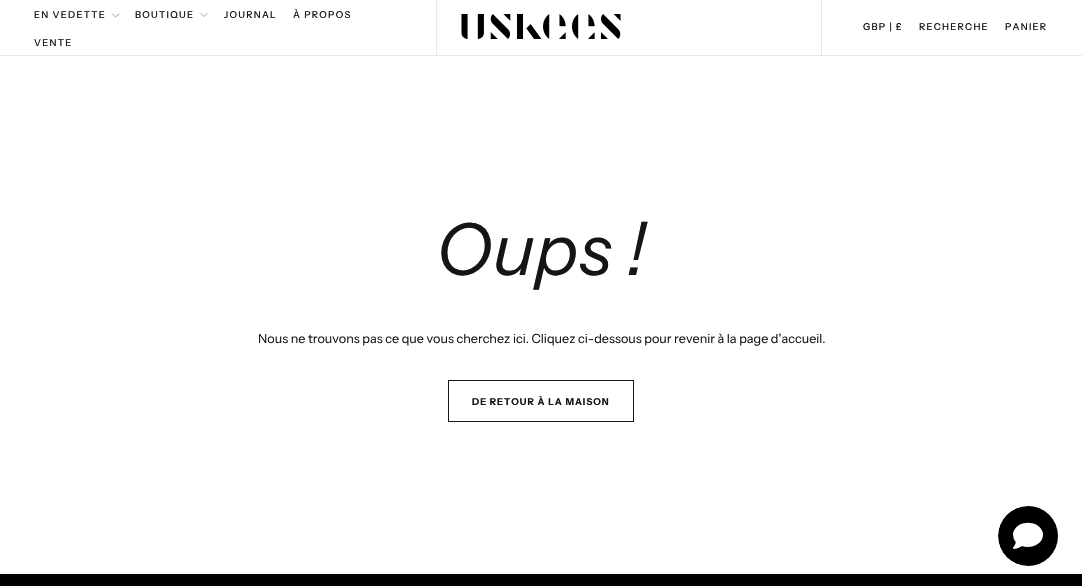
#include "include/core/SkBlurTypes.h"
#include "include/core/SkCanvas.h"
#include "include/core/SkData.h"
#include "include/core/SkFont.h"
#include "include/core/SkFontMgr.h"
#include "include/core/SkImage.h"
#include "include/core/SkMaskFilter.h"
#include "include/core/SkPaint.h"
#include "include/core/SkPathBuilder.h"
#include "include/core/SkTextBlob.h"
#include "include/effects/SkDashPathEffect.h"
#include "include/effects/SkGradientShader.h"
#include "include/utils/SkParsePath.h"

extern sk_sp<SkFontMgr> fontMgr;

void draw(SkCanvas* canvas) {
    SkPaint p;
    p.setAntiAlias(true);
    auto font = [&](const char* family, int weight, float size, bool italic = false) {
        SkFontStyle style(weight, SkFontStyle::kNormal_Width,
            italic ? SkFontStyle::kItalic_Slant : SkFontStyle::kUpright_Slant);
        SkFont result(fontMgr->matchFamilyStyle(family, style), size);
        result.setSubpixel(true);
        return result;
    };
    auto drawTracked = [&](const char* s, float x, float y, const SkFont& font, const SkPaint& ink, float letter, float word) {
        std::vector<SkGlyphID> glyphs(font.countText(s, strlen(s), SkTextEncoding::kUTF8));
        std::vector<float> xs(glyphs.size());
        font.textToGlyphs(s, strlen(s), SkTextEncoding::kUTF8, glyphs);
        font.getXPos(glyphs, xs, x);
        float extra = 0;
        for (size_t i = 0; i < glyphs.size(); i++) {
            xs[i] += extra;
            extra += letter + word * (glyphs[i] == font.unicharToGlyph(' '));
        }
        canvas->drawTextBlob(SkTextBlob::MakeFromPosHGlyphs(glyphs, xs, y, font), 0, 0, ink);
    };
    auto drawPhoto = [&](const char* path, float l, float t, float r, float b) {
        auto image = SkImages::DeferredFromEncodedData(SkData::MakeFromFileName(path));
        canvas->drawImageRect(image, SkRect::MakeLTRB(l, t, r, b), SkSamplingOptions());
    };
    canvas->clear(0xFFFFFFFF);
    {
        const struct { float l, t, r, b; SkColor color; } items[] = {
            {821, 0, 822, 56, 0xFFE8E8E8},
            {0, 55, 1082, 56, 0xFFE8E8E8},
            {821, 55, 822, 56, 0xFFD3D3D3},
            {436, 0, 437, 55, 0xFFE8E8E8},
        };
        for (auto [l, t, r, b, color] : items) {
            p.setColor(color);
            canvas->drawRect(SkRect::MakeLTRB(l, t, r, b), p);
        }
    }
    auto font1 = font("Instrument Sans", 500, 9.5f);
    p.setColor(0xFF151515);
    drawTracked("EN VEDETTE", 34, 18, font1, p, 1.25f, 0);
    p.setStyle(SkPaint::kStroke_Style);
    p.setStrokeWidth(0.4f);
    p.setStrokeCap(SkPaint::kSquare_Cap);
    canvas->drawPath(SkPathBuilder().moveTo(119, 14).lineTo(115.5f, 17).lineTo(112.5f, 14).detach(), p);
    p.setStyle(SkPaint::kFill_Style);
    drawTracked("BOUTIQUE", 135, 18, font1, p, 1.25f, 0);
    p.setStyle(SkPaint::kStroke_Style);
    canvas->drawPath(SkPathBuilder().moveTo(207, 13.5f).lineTo(204, 16.5f).lineTo(201, 13.5f).detach(), p);
    p.setStyle(SkPaint::kFill_Style);
    {
        const struct { const char* s; float x, y; } items[] = {
            {"JOURNAL", 224, 18},
            {"À PROPOS", 293, 18},
            {"VENTE", 34, 46},
        };
        for (auto [s, x, y] : items) {
            drawTracked(s, x, y, font1, p, 1.25f, 0);
        }
    }
    drawPhoto("media/1.png", 461, 14, 621, 39);
    {
        const struct { const char* s; float x, y; } items[] = {
            {"GBP | £", 863, 30},
            {"RECHERCHE", 919, 30},
            {"PANIER", 1005, 30},
        };
        for (auto [s, x, y] : items) {
            drawTracked(s, x, y, font1, p, 1.25f, 0);
        }
    }
    auto font2 = font("Instrument Sans", 400, 72, true);
    canvas->drawString("Oups !", 436, 275, font2, p);
    auto font3 = font("Instrument Sans", 400, 12.65f);
    canvas->drawString("Nous ne trouvons pas ce que vous cherchez ici. Cliquez ci-dessous pour revenir à la page d'accueil.", 258, 343, font3, p);
    p.setStyle(SkPaint::kStroke_Style);
    p.setStrokeWidth(1);
    p.setStrokeCap(SkPaint::kButt_Cap);
    canvas->drawRect(SkRect::MakeLTRB(448.5f, 380.5f, 633.5f, 421.5f), p);
    auto font4 = font("Instrument Sans", 700, 9.5f);
    p.setStyle(SkPaint::kFill_Style);
    drawTracked("DE RETOUR À LA MAISON", 472, 405, font4, p, 0.95f, 0);
    drawPhoto("media/2.png", 998, 506, 1058, 566);
    p.setColor(0xFF000000);
    canvas->drawRect(SkRect::MakeLTRB(0, 574, 1082, 586), p);
}
